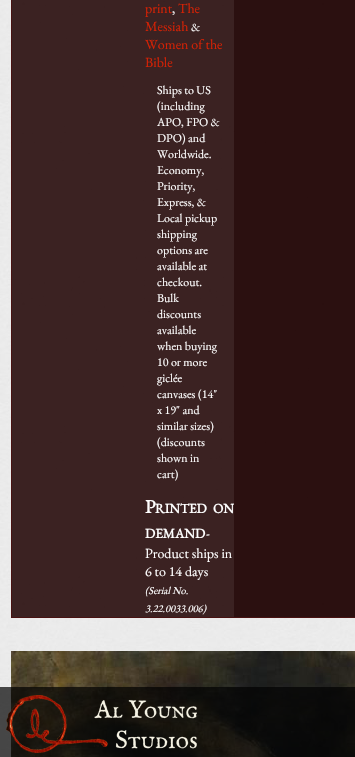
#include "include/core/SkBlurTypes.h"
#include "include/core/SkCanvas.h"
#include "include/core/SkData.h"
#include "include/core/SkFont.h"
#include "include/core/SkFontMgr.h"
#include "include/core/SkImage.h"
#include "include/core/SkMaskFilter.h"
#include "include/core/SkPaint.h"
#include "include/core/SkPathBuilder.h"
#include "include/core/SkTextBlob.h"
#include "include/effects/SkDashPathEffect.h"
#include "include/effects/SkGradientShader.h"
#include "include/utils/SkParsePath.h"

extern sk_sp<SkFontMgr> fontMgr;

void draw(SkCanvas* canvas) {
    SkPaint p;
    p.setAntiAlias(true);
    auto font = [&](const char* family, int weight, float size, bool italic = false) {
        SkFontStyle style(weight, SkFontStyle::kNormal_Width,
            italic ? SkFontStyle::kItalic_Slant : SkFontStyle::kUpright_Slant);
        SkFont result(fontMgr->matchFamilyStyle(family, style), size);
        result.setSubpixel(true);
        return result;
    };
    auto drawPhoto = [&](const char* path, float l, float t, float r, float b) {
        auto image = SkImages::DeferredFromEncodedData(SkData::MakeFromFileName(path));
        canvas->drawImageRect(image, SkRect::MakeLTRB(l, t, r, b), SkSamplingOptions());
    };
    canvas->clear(0xFFFFFFFF);
    drawPhoto("media/1.png", 0, 0, 355, 757);
    {
        const struct { float l, t, r, b; SkColor color; } items[] = {
            {11, 617, 355, 618, 0xFF491212},
            {11, 0, 12, 618, 0xFF491212},
            {12, 0, 144, 617, 0xE0220606},
            {144, 0, 234, 617, 0xE0220606},
        };
        for (auto [l, t, r, b, color] : items) {
            p.setColor(color);
            canvas->drawRect(SkRect::MakeLTRB(l, t, r, b), p);
        }
    }
    auto font1 = font("EB Garamond", 400, 14);
    p.setColor(0xFFD52104);
    canvas->drawString("print", 145, 13, font1, p);
    p.setColor(0xFFFFFFFF);
    canvas->drawString(",", 172, 13, font1, p);
    p.setColor(0xFFD52104);
    canvas->drawString("The", 178, 13, font1, p);
    canvas->drawString("Messiah", 145, 31, font1, p);
    auto font2 = font("EB Garamond", 400, 12);
    p.setColor(0xFFFFFFFF);
    canvas->drawString("&", 191, 31, font2, p);
    p.setColor(0xFFD52104);
    canvas->drawString("Women of the", 145, 49, font1, p);
    canvas->drawString("Bible", 145, 67, font1, p);
    p.setColor(0xFFFFFFFF);
    {
        const struct { const char* s; float x, y; } items[] = {
            {"Ships to US", 157, 94},
            {"(including", 157, 110},
            {"APO, FPO &", 157, 126},
            {"DPO) and", 157, 142},
            {"Worldwide.", 157, 158},
            {"Economy,", 157, 174},
            {"Priority,", 157, 190},
            {"Express, &", 157, 206},
            {"Local pickup", 157, 222},
            {"shipping", 157, 238},
            {"options are", 157, 254},
            {"available at", 157, 270},
            {"checkout.", 157, 286},
            {"Bulk", 157, 302},
            {"discounts", 157, 318},
            {"available", 157, 334},
            {"when buying", 157, 350},
            {"10 or more", 157, 366},
            {"giclée", 157, 382},
            {"canvases (14\"", 157, 398},
            {"x 19\" and", 157, 414},
            {"similar sizes)", 157, 430},
            {"(discounts", 157, 446},
            {"shown in", 157, 462},
            {"cart)", 157, 478},
        };
        for (auto [s, x, y] : items) {
            canvas->drawString(s, x, y, font2, p);
        }
    }
    auto font3 = font("EB Garamond", 700, 19);
    canvas->drawString("P", 145, 513, font3, p);
    auto font4 = font("EB Garamond", 700, 13.5f);
    {
        const struct { const char* s; float x, y; } items[] = {
            {"RINTED", 155, 513},
            {"ON", 213, 513},
            {"DEMAND", 145, 538},
        };
        for (auto [s, x, y] : items) {
            canvas->drawString(s, x, y, font4, p);
        }
    }
    {
        const struct { const char* s; float x, y; } items[] = {
            {"-", 206, 538},
            {"Product ships in", 145, 558},
            {"6 to 14 days", 145, 576},
        };
        for (auto [s, x, y] : items) {
            canvas->drawString(s, x, y, font1, p);
        }
    }
    auto font5 = font("EB Garamond", 400, 10.5f, true);
    canvas->drawString("(Serial No.", 145, 594, font5, p);
    canvas->drawString("3.22.0033.006)", 145, 612, font5, p);
    p.setColor(0xF5220606);
    canvas->drawRect(SkRect::MakeLTRB(234, 0, 355, 617), p);
    drawPhoto("media/2.png", 11, 651, 355, 757);
    p.setColor(0xB3000000);
    canvas->drawRect(SkRect::MakeLTRB(0, 687, 355, 757), p);
    drawPhoto("media/3.png", 6, 695, 197, 753);
}
